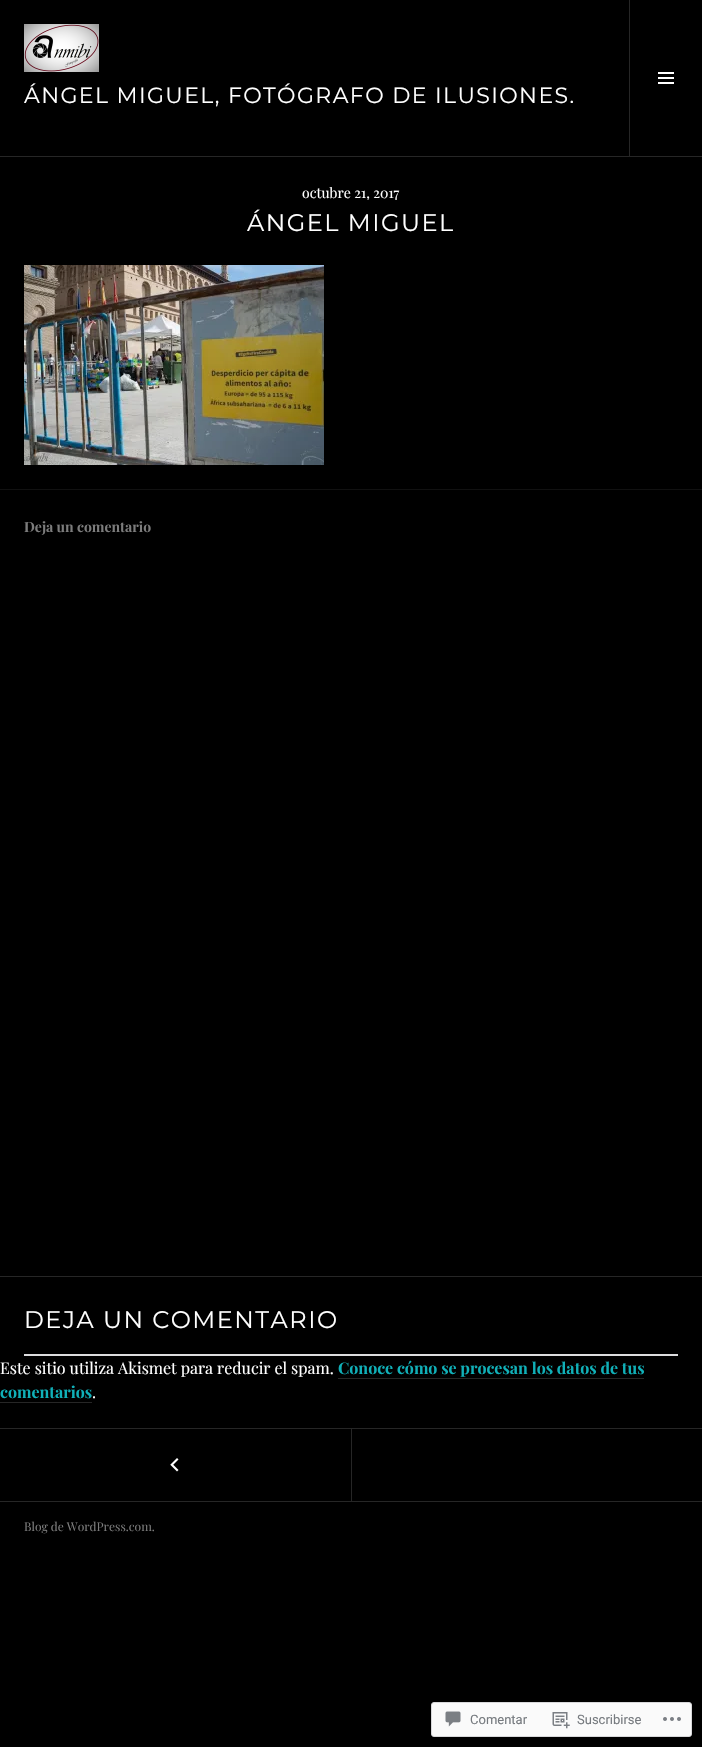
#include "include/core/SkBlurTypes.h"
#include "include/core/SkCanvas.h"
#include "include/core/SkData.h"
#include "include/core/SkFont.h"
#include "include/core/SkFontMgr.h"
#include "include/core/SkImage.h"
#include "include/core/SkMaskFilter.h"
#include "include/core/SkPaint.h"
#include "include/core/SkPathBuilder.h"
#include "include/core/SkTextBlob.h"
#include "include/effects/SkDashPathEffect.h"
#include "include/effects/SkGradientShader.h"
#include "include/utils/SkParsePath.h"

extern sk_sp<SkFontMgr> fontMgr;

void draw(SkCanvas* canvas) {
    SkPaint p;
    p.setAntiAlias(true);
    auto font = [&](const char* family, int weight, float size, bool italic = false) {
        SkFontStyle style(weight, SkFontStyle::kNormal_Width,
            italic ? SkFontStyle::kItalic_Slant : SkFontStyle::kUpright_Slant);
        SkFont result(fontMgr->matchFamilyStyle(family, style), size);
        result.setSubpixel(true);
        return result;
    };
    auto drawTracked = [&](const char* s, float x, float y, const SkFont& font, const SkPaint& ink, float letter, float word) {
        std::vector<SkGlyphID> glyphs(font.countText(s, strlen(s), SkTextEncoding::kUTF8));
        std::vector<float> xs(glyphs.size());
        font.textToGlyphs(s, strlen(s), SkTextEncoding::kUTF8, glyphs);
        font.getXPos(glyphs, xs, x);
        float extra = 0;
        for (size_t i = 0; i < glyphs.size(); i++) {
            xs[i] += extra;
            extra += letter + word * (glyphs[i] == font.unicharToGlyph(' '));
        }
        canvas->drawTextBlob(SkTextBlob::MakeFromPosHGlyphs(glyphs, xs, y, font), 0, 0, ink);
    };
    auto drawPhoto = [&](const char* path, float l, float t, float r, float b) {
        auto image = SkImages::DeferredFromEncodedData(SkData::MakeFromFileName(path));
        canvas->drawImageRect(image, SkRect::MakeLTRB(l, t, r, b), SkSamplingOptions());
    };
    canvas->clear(0xFF000000);
    p.setColor(0xFF262626);
    canvas->drawRect(SkRect::MakeLTRB(0, 156, 702, 157), p);
    drawPhoto("media/1.png", 24, 24, 99, 72);
    auto font1 = font("Montserrat", 400, 22);
    p.setColor(0xFFFFFFFF);
    drawTracked("ÁNGEL MIGUEL, FOTÓGRAFO DE ILUSIONES.", 24, 103, font1, p, 1.4f, 0);
    p.setColor(0xFF262626);
    canvas->drawRect(SkRect::MakeLTRB(629, 0, 630, 156), p);
    drawPhoto("media/2.png", 658, 72, 674, 84);
    auto font2 = font("Playfair Display", 400, 14);
    p.setColor(0xFFFFFFFF);
    canvas->drawString("octubre 21, 2017", 302, 198, font2, p);
    auto font3 = font("Montserrat", 400, 24);
    drawTracked("ÁNGEL MIGUEL", 247, 231, font3, p, 1.5f, 0);
    drawPhoto("media/3.png", 24, 265, 324, 465);
    p.setColor(0xFF111111);
    canvas->drawRect(SkRect::MakeLTRB(0, 489, 702, 490), p);
    auto font4 = font("Playfair Display", 700, 14);
    p.setColor(0xFF7C7C7C);
    canvas->drawString("Deja un comentario", 24, 532, font4, p);
    p.setColor(0xFF262626);
    canvas->drawRect(SkRect::MakeLTRB(0, 1276, 702, 1277), p);
    p.setColor(0xFFFFFFFF);
    drawTracked("DEJA UN COMENTARIO", 24, 1328, font3, p, 1.5f, 0);
    p.setColor(0xFFDCDCDE);
    canvas->drawRect(SkRect::MakeLTRB(24, 1354, 678, 1356), p);
    auto font5 = font("Playfair Display", 400, 16);
    p.setColor(0xFFFFFFFF);
    canvas->drawString("Este sitio utiliza Akismet para reducir el spam.", 0, 1374, font5, p);
    auto font6 = font("Playfair Display", 700, 16);
    p.setColor(0xFF10B0B8);
    canvas->drawString("Conoce cómo se procesan los datos de tus", 338, 1374, font6, p);
    p.setColor(0xFF262626);
    canvas->drawRect(SkRect::MakeLTRB(338, 1378, 644, 1379), p);
    p.setColor(0xFF10B0B8);
    canvas->drawString("comentarios", 0, 1398, font6, p);
    p.setColor(0xFF262626);
    canvas->drawRect(SkRect::MakeLTRB(0, 1402, 92, 1403), p);
    p.setColor(0xFFFFFFFF);
    canvas->drawString(".", 92, 1398, font5, p);
    p.setColor(0xFF262626);
    canvas->drawRect(SkRect::MakeLTRB(0, 1428, 702, 1429), p);
    drawPhoto("media/4.png", 170, 1458, 179, 1472);
    canvas->drawRect(SkRect::MakeLTRB(351, 1429, 352, 1501), p);
    canvas->drawRect(SkRect::MakeLTRB(0, 1501, 702, 1502), p);
    auto font7 = font("Playfair Display", 400, 12);
    p.setColor(0xFF7C7C7C);
    canvas->drawString("Blog de WordPress.com.", 24, 1531, font7, p);
    p.setColor(0xFFFAFAFA);
    canvas->drawRoundRect(SkRect::MakeLTRB(431.5f, 1702.5f, 691.5f, 1736.5f), 2.5f, 2.5f, p);
    p.setStyle(SkPaint::kStroke_Style);
    p.setStrokeWidth(1);
    p.setColor(0xFFD8D8DA);
    canvas->drawRoundRect(SkRect::MakeLTRB(431.5f, 1702.5f, 691.5f, 1736.5f), 2.5f, 2.5f, p);
    drawPhoto("media/5.png", 445, 1711, 461, 1727);
    auto font8 = font("Roboto", 400, 13);
    p.setStyle(SkPaint::kFill_Style);
    p.setColor(0xFF767A7F);
    canvas->drawString("Comentar", 470, 1724, font8, p);
    drawPhoto("media/6.png", 552, 1712, 570, 1729);
    canvas->drawString("Suscribirse", 577, 1724, font8, p);
    drawPhoto("media/7.png", 663, 1717, 681, 1721);
}
